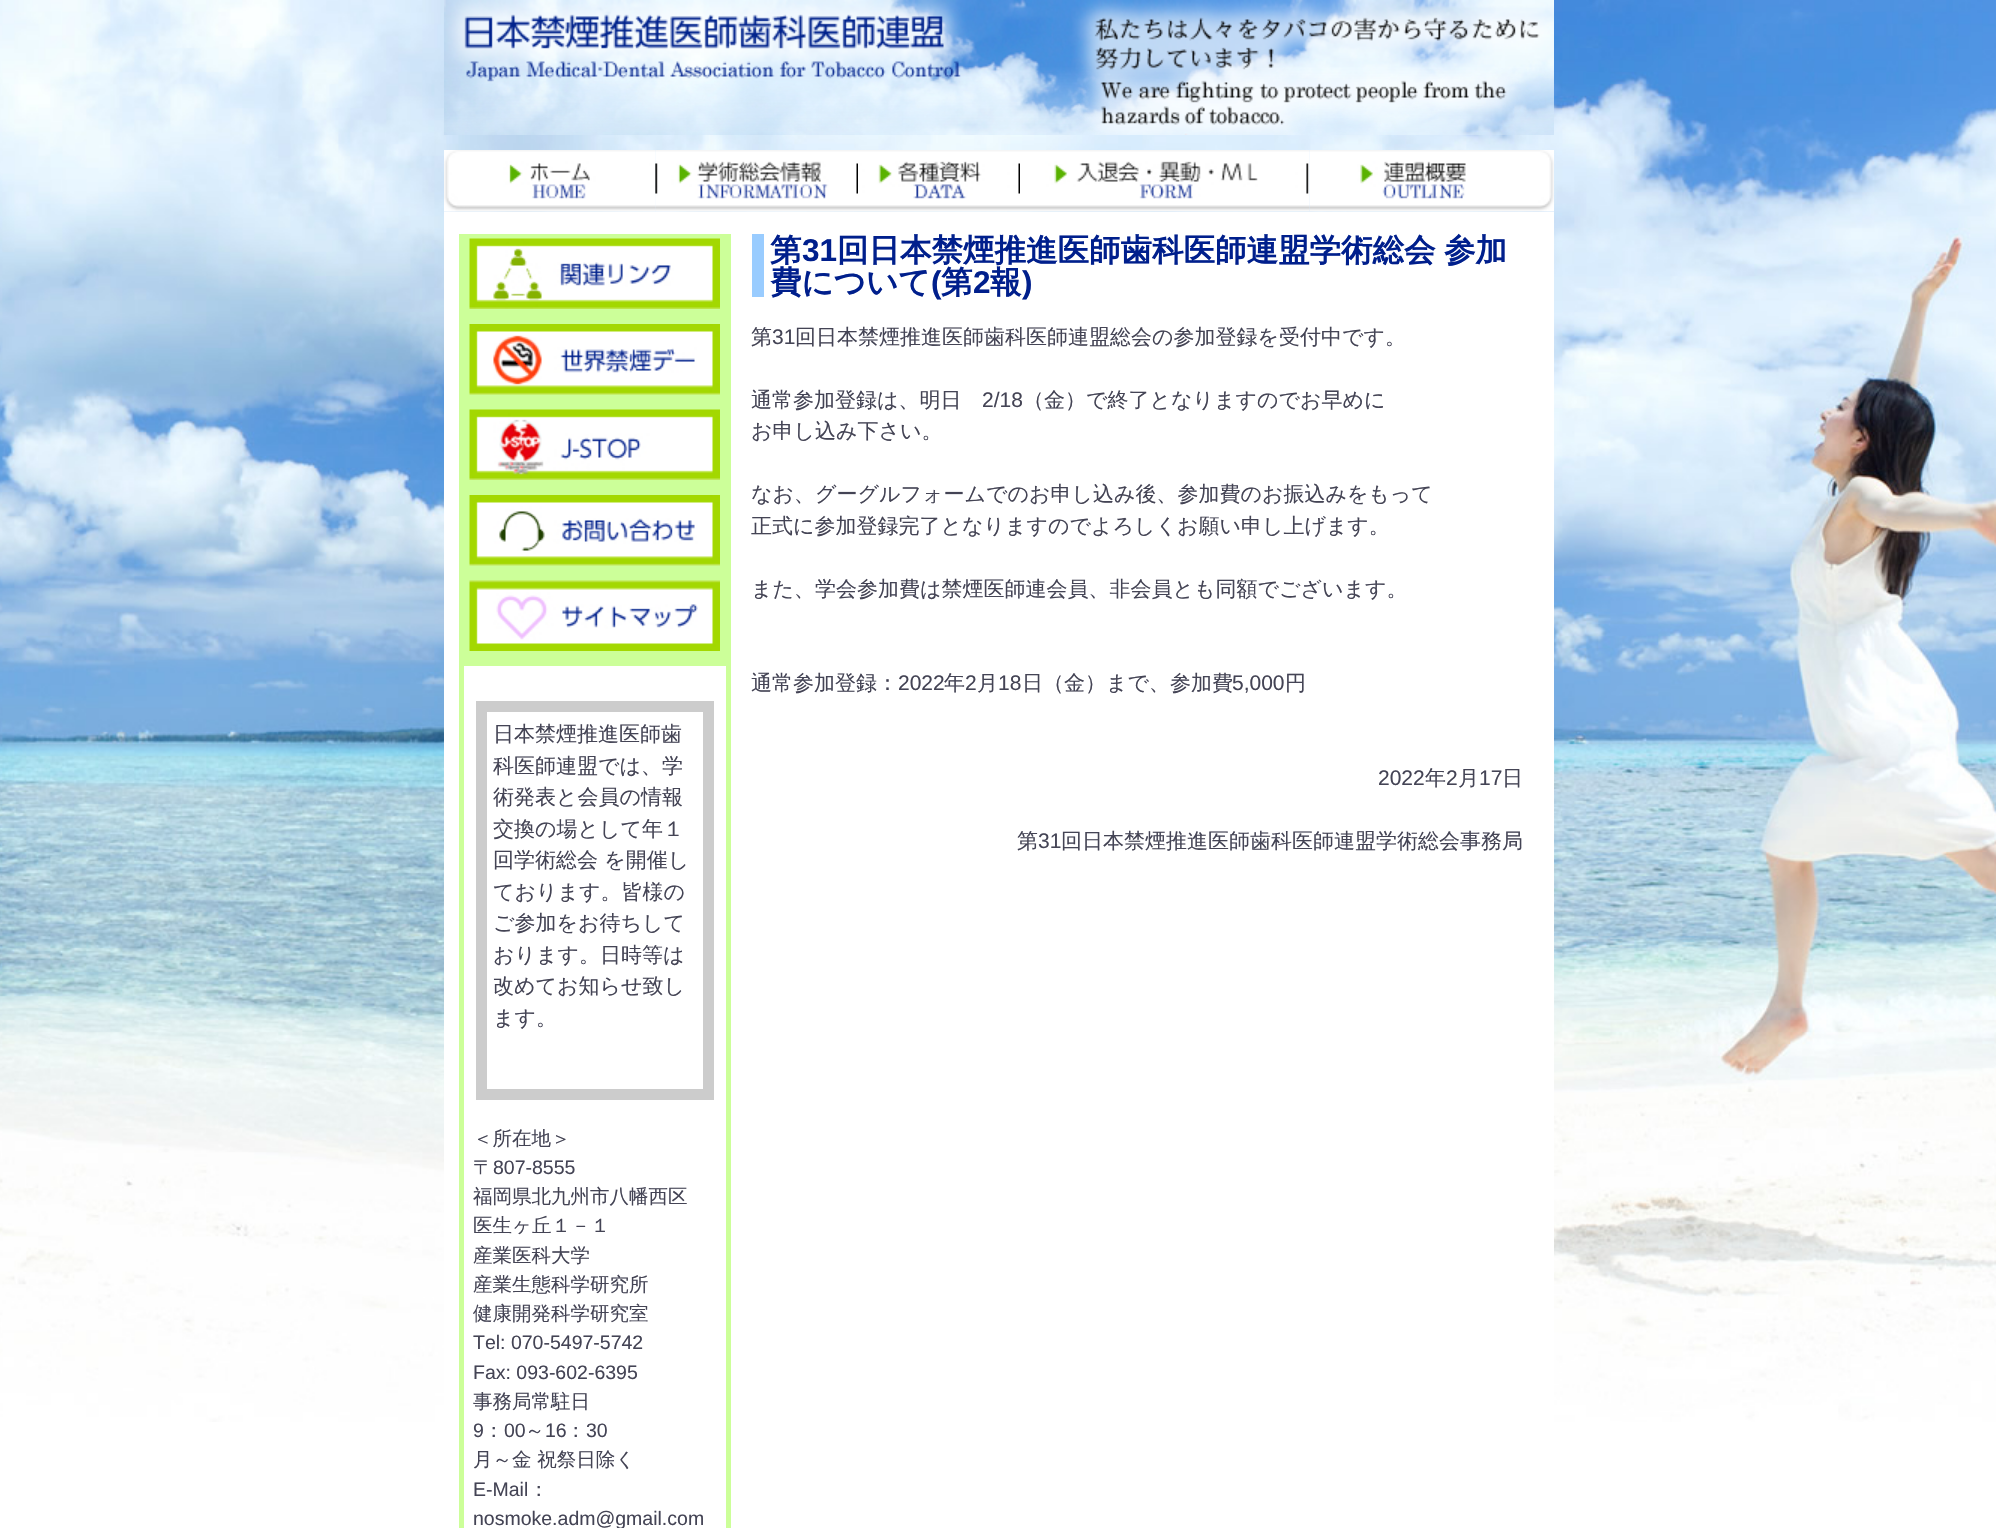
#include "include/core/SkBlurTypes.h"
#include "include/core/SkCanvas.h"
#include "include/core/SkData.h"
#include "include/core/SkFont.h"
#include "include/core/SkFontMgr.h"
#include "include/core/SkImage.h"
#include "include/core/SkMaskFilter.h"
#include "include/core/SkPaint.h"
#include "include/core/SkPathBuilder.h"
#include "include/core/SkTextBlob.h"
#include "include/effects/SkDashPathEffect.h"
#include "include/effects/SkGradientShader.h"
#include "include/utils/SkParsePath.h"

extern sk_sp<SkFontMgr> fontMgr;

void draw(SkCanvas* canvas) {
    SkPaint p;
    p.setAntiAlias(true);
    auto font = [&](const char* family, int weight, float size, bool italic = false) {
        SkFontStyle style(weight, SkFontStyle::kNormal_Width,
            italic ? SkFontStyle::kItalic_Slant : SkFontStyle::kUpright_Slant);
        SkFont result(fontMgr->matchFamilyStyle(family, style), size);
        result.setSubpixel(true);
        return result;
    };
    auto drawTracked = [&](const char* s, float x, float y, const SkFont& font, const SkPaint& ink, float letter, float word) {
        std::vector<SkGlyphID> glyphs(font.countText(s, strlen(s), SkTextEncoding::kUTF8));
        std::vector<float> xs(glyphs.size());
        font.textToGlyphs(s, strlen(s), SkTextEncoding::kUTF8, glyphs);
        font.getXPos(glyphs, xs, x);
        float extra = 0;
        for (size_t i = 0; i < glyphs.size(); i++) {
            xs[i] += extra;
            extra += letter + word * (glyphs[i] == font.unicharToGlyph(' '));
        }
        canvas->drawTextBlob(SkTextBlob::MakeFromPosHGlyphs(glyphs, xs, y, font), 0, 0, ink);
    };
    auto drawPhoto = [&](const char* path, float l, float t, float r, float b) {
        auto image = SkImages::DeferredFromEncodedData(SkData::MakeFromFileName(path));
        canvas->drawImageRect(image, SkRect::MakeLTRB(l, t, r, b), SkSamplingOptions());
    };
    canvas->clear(0xFFFFFFFF);
    drawPhoto("media/1.png", 0, 0, 1996, 1422);
    drawPhoto("media/2.png", 444, 0, 1554, 135);
    drawPhoto("media/3.png", 444, 150, 656, 212);
    drawPhoto("media/4.png", 444, 151, 656, 212);
    drawPhoto("media/5.png", 655, 150, 858, 212);
    drawPhoto("media/6.png", 655, 163, 858, 212);
    drawPhoto("media/7.png", 858, 150, 1020, 212);
    p.setColor(0x40FBFBFB);
    canvas->drawRect(SkRect::MakeLTRB(858, 211, 1007, 212), p);
    drawPhoto("media/8.png", 1020, 150, 1310, 212);
    drawPhoto("media/9.png", 1309, 150, 1554, 212);
    p.setColor(0xFFFFFFFF);
    canvas->drawRect(SkRect::MakeLTRB(444, 212, 1554, 1422), p);
    p.setColor(0xFF99CCFF);
    canvas->drawRect(SkRect::MakeLTRB(752, 234, 764, 297), p);
    auto font1 = font("WenQuanYi Zen Hei", 700, 31.5f);
    p.setColor(0xFF001F8C);
    canvas->drawString("第", 770, 261, font1, p);
    auto font2 = font("Liberation Sans", 700, 31.5f);
    canvas->drawString("31", 802, 261, font2, p);
    drawTracked("回日本禁煙推進医師歯科医師連盟学術総会 参加", 837, 261, font1, p, 0, -1);
    canvas->drawString("費について", 770, 293, font1, p);
    canvas->drawString("(", 931, 293, font2, p);
    canvas->drawString("第", 941, 293, font1, p);
    canvas->drawString("2", 973, 293, font2, p);
    canvas->drawString("報", 990, 293, font1, p);
    canvas->drawString(")", 1022, 293, font2, p);
    auto font3 = font("WenQuanYi Zen Hei", 500, 21);
    p.setColor(0xFF444455);
    canvas->drawString("第", 751, 344, font3, p);
    auto font4 = font("Liberation Sans", 400, 21);
    canvas->drawString("31", 772, 344, font4, p);
    canvas->drawString("回日本禁煙推進医師歯科医師連盟総会の参加登録を受付中です。", 795, 344, font3, p);
    canvas->drawString("通常参加登録は、明日", 751, 407, font3, p);
    canvas->drawString("2/18", 982, 407, font4, p);
    {
        const struct { const char* s; float x, y; } items[] = {
            {"（金）で終了となりますのでお早めに", 1023, 407},
            {"お申し込み下さい。", 751, 438},
            {"なお、グーグルフォームでのお申し込み後、参加費のお振込みをもって", 751, 501},
            {"正式に参加登録完了となりますのでよろしくお願い申し上げます。", 751, 533},
            {"また、学会参加費は禁煙医師連会員、非会員とも同額でございます。", 751, 596},
            {"通常参加登録：", 751, 690},
        };
        for (auto [s, x, y] : items) {
            canvas->drawString(s, x, y, font3, p);
        }
    }
    canvas->drawString("2022", 898, 690, font4, p);
    canvas->drawString("年", 944, 690, font3, p);
    canvas->drawString("2", 965, 690, font4, p);
    canvas->drawString("月", 977, 690, font3, p);
    canvas->drawString("18", 998, 690, font4, p);
    canvas->drawString("日（金）まで、参加費", 1022, 690, font3, p);
    canvas->drawString("5,000", 1232, 690, font4, p);
    canvas->drawString("円", 1285, 690, font3, p);
    canvas->drawString("2022", 1378, 785, font4, p);
    canvas->drawString("年", 1425, 785, font3, p);
    canvas->drawString("2", 1446, 785, font4, p);
    canvas->drawString("月", 1458, 785, font3, p);
    canvas->drawString("17", 1479, 785, font4, p);
    canvas->drawString("日", 1502, 785, font3, p);
    canvas->drawString("第", 1017, 848, font3, p);
    canvas->drawString("31", 1038, 848, font4, p);
    canvas->drawString("回日本禁煙推進医師歯科医師連盟学術総会事務局", 1061, 848, font3, p);
    p.setColor(0xFFCCFF99);
    canvas->drawRect(SkRect::MakeLTRB(459, 234, 731, 1528), p);
    drawPhoto("media/10.png", 469, 238, 720, 309);
    drawPhoto("media/11.png", 469, 324, 720, 395);
    drawPhoto("media/12.png", 469, 409, 720, 480);
    drawPhoto("media/13.png", 469, 495, 720, 566);
    drawPhoto("media/14.png", 469, 580, 720, 651);
    p.setColor(0xFFFFFFFF);
    canvas->drawRect(SkRect::MakeLTRB(464, 666, 726, 1528), p);
    p.setStyle(SkPaint::kStroke_Style);
    p.setStrokeWidth(11);
    p.setColor(0xFFCCCCCC);
    canvas->drawRect(SkRect::MakeLTRB(481.5f, 706.5f, 708.5f, 1094.5f), p);
    p.setStyle(SkPaint::kFill_Style);
    p.setColor(0xFF444455);
    {
        const struct { const char* s; float x, y; } items[] = {
            {"日本禁煙推進医師歯", 493, 741},
            {"科医師連盟では、学", 493, 773},
            {"術発表と会員の情報", 493, 804},
            {"交換の場として年１", 493, 836},
            {"回学術総会 を開催し", 493, 867},
            {"ております。皆様の", 493, 899},
            {"ご参加をお待ちして", 493, 930},
            {"おります。日時等は", 493, 962},
            {"改めてお知らせ致し", 493, 993},
            {"ます。", 493, 1025},
        };
        for (auto [s, x, y] : items) {
            canvas->drawString(s, x, y, font3, p);
        }
    }
    auto font5 = font("WenQuanYi Zen Hei", 500, 19.5f);
    canvas->drawString("＜所在地＞", 473, 1145, font5, p);
    canvas->drawString("〒", 473, 1174, font5, p);
    auto font6 = font("Liberation Sans", 400, 19.5f);
    canvas->drawString("807-8555", 493, 1174, font6, p);
    {
        const struct { const char* s; float x, y; } items[] = {
            {"福岡県北九州市八幡西区", 473, 1203},
            {"医生ヶ丘１－１", 473, 1232},
            {"産業医科大学", 473, 1262},
            {"産業生態科学研究所", 473, 1291},
            {"健康開発科学研究室", 473, 1320},
        };
        for (auto [s, x, y] : items) {
            canvas->drawString(s, x, y, font5, p);
        }
    }
    canvas->drawString("Tel: 070-5497-5742", 473, 1349, font6, p);
    canvas->drawString("Fax: 093-602-6395", 473, 1379, font6, p);
    canvas->drawString("事務局常駐日", 473, 1408, font5, p);
    canvas->drawString("9", 473, 1437, font6, p);
    canvas->drawString("：", 484, 1437, font5, p);
    canvas->drawString("00", 504, 1437, font6, p);
    canvas->drawString("～", 525, 1437, font5, p);
    canvas->drawString("16", 545, 1437, font6, p);
    canvas->drawString("：", 566, 1437, font5, p);
    canvas->drawString("30", 586, 1437, font6, p);
    canvas->drawString("月～金 祝祭日除く", 473, 1466, font5, p);
    canvas->drawString("E-Mail", 473, 1496, font6, p);
    canvas->drawString("：", 529, 1496, font5, p);
    canvas->drawString("nosmoke.adm@gmail.com", 473, 1525, font6, p);
}
